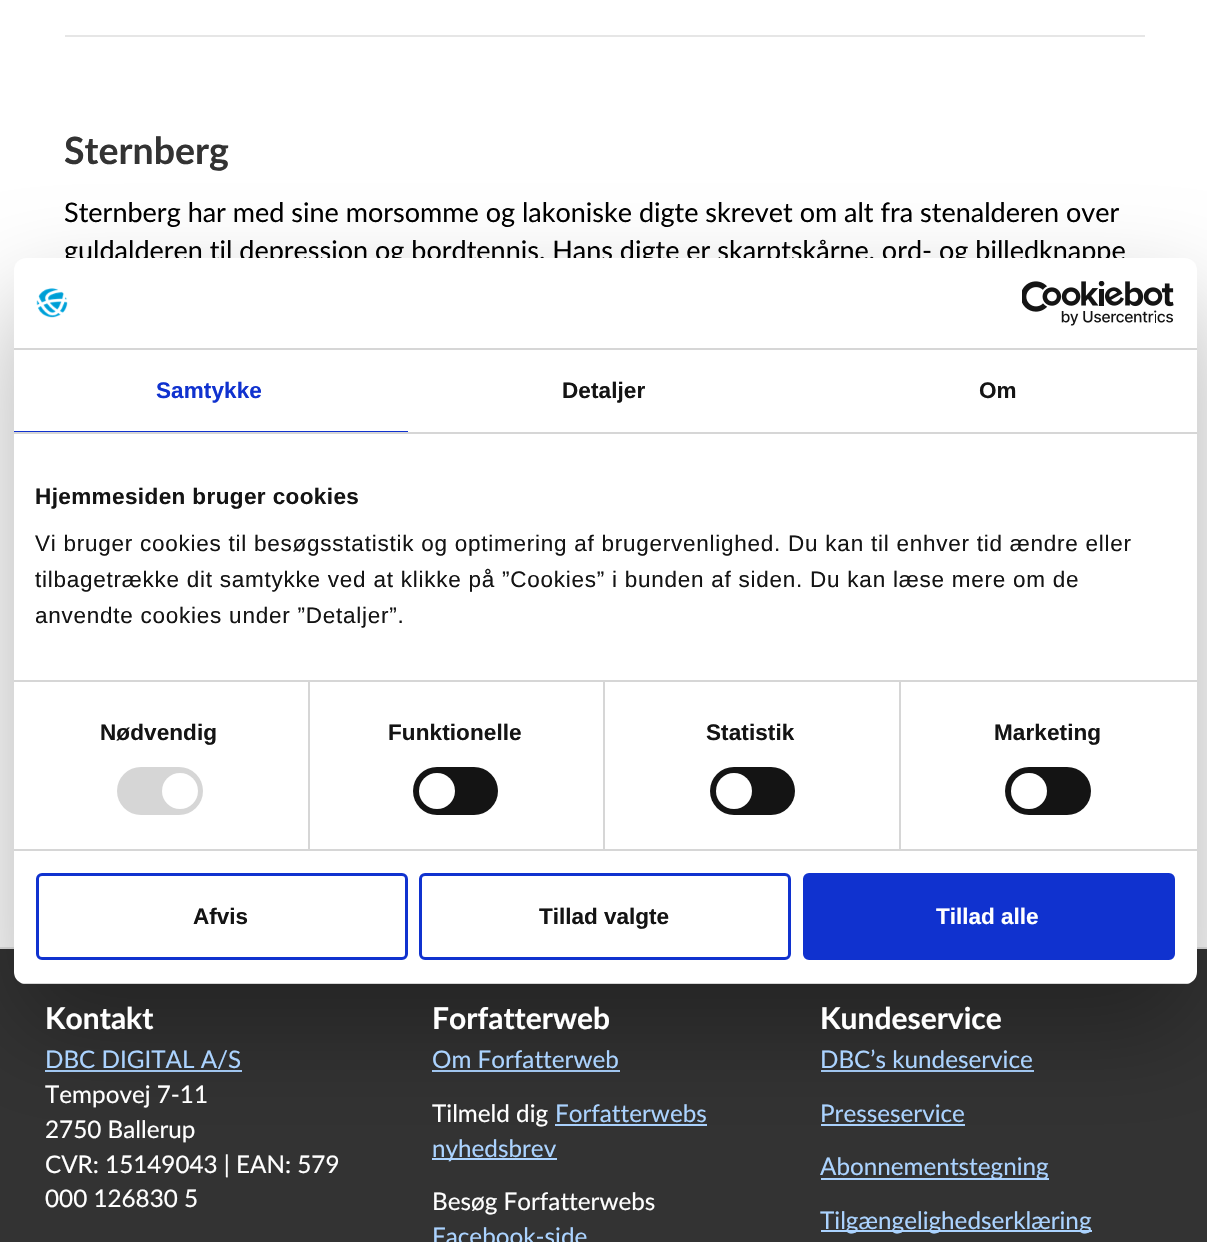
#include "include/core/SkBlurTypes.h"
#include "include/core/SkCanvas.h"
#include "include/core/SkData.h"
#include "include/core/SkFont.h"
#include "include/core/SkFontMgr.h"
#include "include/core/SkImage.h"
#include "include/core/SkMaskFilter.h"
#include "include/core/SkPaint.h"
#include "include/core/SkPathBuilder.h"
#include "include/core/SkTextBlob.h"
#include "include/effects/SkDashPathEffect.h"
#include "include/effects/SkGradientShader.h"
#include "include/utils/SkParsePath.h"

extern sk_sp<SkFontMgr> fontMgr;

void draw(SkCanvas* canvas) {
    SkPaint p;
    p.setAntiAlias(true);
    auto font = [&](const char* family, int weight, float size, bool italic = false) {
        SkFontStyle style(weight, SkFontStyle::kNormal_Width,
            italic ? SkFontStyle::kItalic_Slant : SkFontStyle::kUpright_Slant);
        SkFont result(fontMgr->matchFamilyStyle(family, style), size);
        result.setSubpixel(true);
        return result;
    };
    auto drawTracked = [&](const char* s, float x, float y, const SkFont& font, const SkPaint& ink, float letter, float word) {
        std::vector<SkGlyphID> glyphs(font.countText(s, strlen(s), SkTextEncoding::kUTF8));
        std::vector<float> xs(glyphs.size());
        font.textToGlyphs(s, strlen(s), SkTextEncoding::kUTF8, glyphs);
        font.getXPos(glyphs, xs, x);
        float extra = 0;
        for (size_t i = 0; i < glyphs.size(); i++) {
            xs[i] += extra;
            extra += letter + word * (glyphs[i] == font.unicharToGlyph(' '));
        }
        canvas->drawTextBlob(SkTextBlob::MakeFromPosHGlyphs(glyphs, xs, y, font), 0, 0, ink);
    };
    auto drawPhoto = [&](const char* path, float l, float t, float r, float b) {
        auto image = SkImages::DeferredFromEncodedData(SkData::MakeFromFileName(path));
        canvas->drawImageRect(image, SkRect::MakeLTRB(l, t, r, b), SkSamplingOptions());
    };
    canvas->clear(0xFFFFFFFF);
    p.setColor(0xFFE6E6E6);
    canvas->drawRect(SkRect::MakeLTRB(65, 35, 1145, 37), p);
    auto font1 = font("Lato", 700, 37.5f);
    p.setColor(0xFF333333);
    canvas->drawString("Sternberg", 64, 164, font1, p);
    auto font2 = font("Lato", 400, 27);
    p.setColor(0xFF000000);
    canvas->drawString("Sternberg har med sine morsomme og lakoniske digte skrevet om alt fra stenalderen over", 64, 222, font2, p);
    canvas->drawString("guldalderen til depression og bordtennis. Hans digte er skarptskårne, ord- og billedknappe", 64, 260, font2, p);
    {
        const struct { float l, t, r, b; SkColor color; } items[] = {
            {0, 949, 1207, 1242, 0xFF333333},
            {0, 947, 1207, 949, 0xFFE5E5E5},
            {45, 1070, 242, 1072, 0xFFABD3FF},
            {432, 1070, 620, 1072, 0xFFABD3FF},
            {555, 1124, 707, 1126, 0xFFABD3FF},
            {432, 1158, 557, 1160, 0xFFABD3FF},
            {821, 1070, 1034, 1072, 0xFFABD3FF},
            {821, 1124, 965, 1126, 0xFFABD3FF},
            {821, 1178, 1049, 1180, 0xFFABD3FF},
        };
        for (auto [l, t, r, b, color] : items) {
            p.setColor(color);
            canvas->drawRect(SkRect::MakeLTRB(l, t, r, b), p);
        }
    }
    p.setColor(0x4D000000);
    p.setMaskFilter(SkMaskFilter::MakeBlur(kNormal_SkBlurStyle, 51));
    canvas->drawRoundRect(SkRect::MakeLTRB(14, 306, 1197, 1032), 12, 12, p);
    p.setMaskFilter(nullptr);
    p.setColor(0xFFFFFFFF);
    canvas->drawRoundRect(SkRect::MakeLTRB(14, 258, 1197, 984), 12, 12, p);
    p.setColor(0xFFD6D6D6);
    canvas->drawRect(SkRect::MakeLTRB(14, 348, 1197, 350), p);
    drawPhoto("media/1.png", 36, 288, 68, 318);
    drawPhoto("media/2.png", 1022, 281, 1174, 326);
    canvas->drawRect(SkRect::MakeLTRB(14, 432, 1197, 434), p);
    p.setColor(0xFF1032CF);
    canvas->drawRect(SkRect::MakeLTRB(14, 431, 408, 432), p);
    auto font3 = font("Liberation Sans", 700, 22.5f);
    drawTracked("Samtykke", 156, 398, font3, p, 0.1f, 0);
    p.setColor(0xFF141414);
    drawTracked("Detaljer", 562, 398, font3, p, 0.1f, 0);
    drawTracked("Om", 979, 398, font3, p, 0.1f, 0);
    {
        const struct { float l, t, r, b; SkColor color; } items[] = {
            {308, 681, 310, 849, 0xFFD6D6D6},
            {603, 681, 605, 849, 0xFFD6D6D6},
            {899, 681, 901, 849, 0xFFD6D6D6},
            {14, 680, 1197, 682, 0xFFD6D6D6},
        };
        for (auto [l, t, r, b, color] : items) {
            p.setColor(color);
            canvas->drawRect(SkRect::MakeLTRB(l, t, r, b), p);
        }
    }
    p.setColor(0xFF141414);
    drawTracked("Hjemmesiden bruger cookies", 35, 504, font3, p, 0.4f, 0);
    auto font4 = font("Liberation Sans", 400, 22.5f);
    {
        const struct { const char* s; float x, y; } items[] = {
            {"Vi bruger cookies til besøgsstatistik og optimering af brugervenlighed. Du kan til enhver tid ændre eller", 35, 551},
            {"tilbagetrække dit samtykke ved at klikke på ”Cookies” i bunden af siden. Du kan læse mere om de", 35, 587},
            {"anvendte cookies under ”Detaljer”.", 35, 623},
        };
        for (auto [s, x, y] : items) {
            drawTracked(s, x, y, font4, p, 0.75f, 0);
        }
    }
    p.setColor(0xFFD6D6D6);
    canvas->drawRect(SkRect::MakeLTRB(14, 849, 1197, 851), p);
    p.setColor(0xFF141414);
    drawTracked("Nødvendig", 100, 740, font3, p, 0.1f, 0);
    p.setColor(0xFFD6D6D6);
    canvas->drawRoundRect(SkRect::MakeLTRB(117, 767, 203, 815), 24, 24, p);
    p.setColor(0xFFFFFFFF);
    canvas->drawCircle(180, 791, 18, p);
    p.setColor(0xFF141414);
    drawTracked("Funktionelle", 388, 740, font3, p, 0.1f, 0);
    canvas->drawRoundRect(SkRect::MakeLTRB(413, 767, 498, 815), 24, 24, p);
    p.setColor(0xFFFFFFFF);
    canvas->drawCircle(437, 791, 18, p);
    p.setColor(0xFF141414);
    drawTracked("Statistik", 706, 740, font3, p, 0.1f, 0);
    canvas->drawRoundRect(SkRect::MakeLTRB(710, 767, 795, 815), 24, 24, p);
    p.setColor(0xFFFFFFFF);
    canvas->drawCircle(734, 791, 18, p);
    p.setColor(0xFF141414);
    drawTracked("Marketing", 994, 740, font3, p, 0.1f, 0);
    canvas->drawRoundRect(SkRect::MakeLTRB(1005, 767, 1091, 815), 24, 24, p);
    p.setColor(0xFFFFFFFF);
    canvas->drawCircle(1029, 791, 18, p);
    canvas->save();
    canvas->clipPath(SkPathBuilder().moveTo(26, 258).lineTo(1185, 258).cubicTo(1191.5f, 258, 1197, 263.5f, 1197, 270).lineTo(1197, 972).cubicTo(1197, 978.5f, 1191.5f, 984, 1185, 984).lineTo(26, 984).cubicTo(19.5f, 984, 14, 978.5f, 14, 972).lineTo(14, 270).cubicTo(14, 263.5f, 19.5f, 258, 26, 258).close().detach(), true);
    p.setColor(0xFFD6D6D6);
    canvas->drawRect(SkRect::MakeLTRB(14, 983, 1197, 984), p);
    canvas->restore();
    p.setStyle(SkPaint::kStroke_Style);
    p.setStrokeWidth(3);
    p.setColor(0xFF1032CF);
    canvas->drawRoundRect(SkRect::MakeLTRB(37.5f, 874.5f, 406.5f, 958.5f), 4.5f, 4.5f, p);
    p.setStyle(SkPaint::kFill_Style);
    p.setColor(0xFF141414);
    canvas->drawString("Afvis", 193, 924, font3, p);
    p.setStyle(SkPaint::kStroke_Style);
    p.setColor(0xFF1032CF);
    canvas->drawRoundRect(SkRect::MakeLTRB(420.5f, 874.5f, 789.5f, 958.5f), 4.5f, 4.5f, p);
    p.setStyle(SkPaint::kFill_Style);
    p.setColor(0xFF141414);
    canvas->drawString("Tillad valgte", 539, 924, font3, p);
    p.setColor(0xFF1032CF);
    canvas->drawRoundRect(SkRect::MakeLTRB(804.5f, 874.5f, 1173.5f, 958.5f), 4.5f, 4.5f, p);
    p.setStyle(SkPaint::kStroke_Style);
    canvas->drawRoundRect(SkRect::MakeLTRB(804.5f, 874.5f, 1173.5f, 958.5f), 4.5f, 4.5f, p);
    p.setStyle(SkPaint::kFill_Style);
    p.setColor(0xFFFFFFFF);
    canvas->drawString("Tillad alle", 936, 924, font3, p);
    auto font5 = font("Lato", 700, 30);
    canvas->drawString("Kontakt", 45, 1029, font5, p);
    auto font6 = font("Lato", 400, 24.25f);
    p.setColor(0xFFABD3FF);
    canvas->drawString("DBC DIGITAL A/S", 45, 1068, font6, p);
    p.setColor(0xFFFFFFFF);
    {
        const struct { const char* s; float x, y; } items[] = {
            {"Tempovej 7-11", 45, 1103},
            {"2750 Ballerup", 45, 1138},
            {"CVR: 15149043 | EAN: 579", 45, 1173},
            {"000 126830 5", 45, 1207},
        };
        for (auto [s, x, y] : items) {
            canvas->drawString(s, x, y, font6, p);
        }
    }
    canvas->drawString("Forfatterweb", 432, 1029, font5, p);
    p.setColor(0xFFABD3FF);
    canvas->drawString("Om Forfatterweb", 432, 1068, font6, p);
    p.setColor(0xFFFFFFFF);
    canvas->drawString("Tilmeld dig", 432, 1122, font6, p);
    p.setColor(0xFFABD3FF);
    canvas->drawString("Forfatterwebs", 555, 1122, font6, p);
    canvas->drawString("nyhedsbrev", 432, 1157, font6, p);
    p.setColor(0xFFFFFFFF);
    canvas->drawString("Besøg Forfatterwebs", 432, 1210, font6, p);
    p.setColor(0xFFABD3FF);
    canvas->drawString("Facebook-side", 432, 1245, font6, p);
    p.setColor(0xFFFFFFFF);
    canvas->drawString("Kundeservice", 820, 1029, font5, p);
    p.setColor(0xFFABD3FF);
    {
        const struct { const char* s; float x, y; } items[] = {
            {"DBC’s kundeservice", 820, 1068},
            {"Presseservice", 820, 1122},
            {"Abonnementstegning", 820, 1175},
        };
        for (auto [s, x, y] : items) {
            canvas->drawString(s, x, y, font6, p);
        }
    }
    canvas->drawRect(SkRect::MakeLTRB(821, 1230, 1092, 1232), p);
    canvas->drawString("Tilgængelighedserklæring", 820, 1229, font6, p);
}
